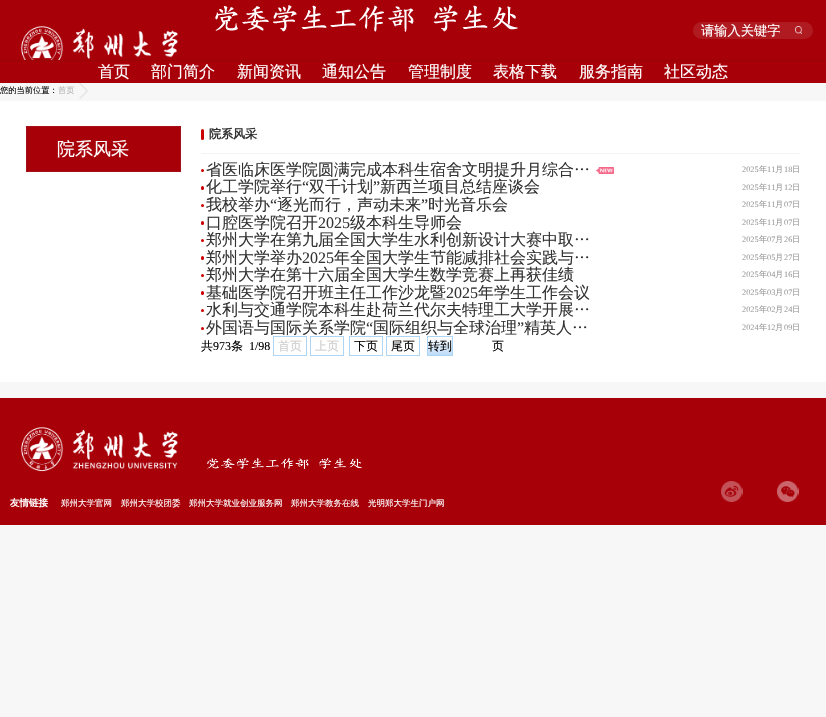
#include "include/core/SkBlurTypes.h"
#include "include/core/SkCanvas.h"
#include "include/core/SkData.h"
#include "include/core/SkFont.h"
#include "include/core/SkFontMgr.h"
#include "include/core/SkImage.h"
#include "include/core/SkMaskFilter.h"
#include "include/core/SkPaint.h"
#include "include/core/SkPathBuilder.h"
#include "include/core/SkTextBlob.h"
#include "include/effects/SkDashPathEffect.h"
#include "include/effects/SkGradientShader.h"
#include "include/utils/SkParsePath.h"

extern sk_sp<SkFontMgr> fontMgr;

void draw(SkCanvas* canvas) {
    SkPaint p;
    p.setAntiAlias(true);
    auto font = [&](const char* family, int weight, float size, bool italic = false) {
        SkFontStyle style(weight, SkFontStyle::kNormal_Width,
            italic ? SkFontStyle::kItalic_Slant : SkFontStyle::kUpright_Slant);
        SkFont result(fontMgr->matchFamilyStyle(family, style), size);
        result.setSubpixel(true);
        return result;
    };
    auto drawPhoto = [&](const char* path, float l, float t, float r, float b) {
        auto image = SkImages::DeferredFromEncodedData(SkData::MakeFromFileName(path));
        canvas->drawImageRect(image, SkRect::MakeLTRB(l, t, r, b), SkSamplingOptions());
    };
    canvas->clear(0xFFF7F7F7);
    p.setColor(0xFFA70008);
    canvas->drawRect(SkRect::MakeLTRB(0, 0, 826, 60), p);
    drawPhoto("media/1.png", 21, 26, 178, 60);
    drawPhoto("media/2.png", 215, 5, 518, 32);
    p.setColor(0xFFB01A21);
    canvas->drawRoundRect(SkRect::MakeLTRB(693, 22, 813, 39), 8.5f, 8.5f, p);
    auto font1 = font("WenQuanYi Zen Hei", 500, 13.25f);
    p.setColor(0xFFFFFFFF);
    canvas->drawString("请输入关键字", 701, 35, font1, p);
    drawPhoto("media/3.png", 795, 26, 802, 34);
    p.setColor(0xFFA70008);
    canvas->drawRect(SkRect::MakeLTRB(0, 61, 826, 83), p);
    p.setColor(0xFF980505);
    canvas->drawRect(SkRect::MakeLTRB(0, 60, 826, 61), p);
    auto font2 = font("WenQuanYi Zen Hei", 500, 16);
    p.setColor(0xFFFFFFFF);
    {
        const struct { const char* s; float x, y; } items[] = {
            {"首页", 98, 77},
            {"部门简介", 151, 77},
            {"新闻资讯", 237, 77},
            {"通知公告", 322, 77},
            {"管理制度", 408, 77},
            {"表格下载", 493, 77},
            {"服务指南", 579, 77},
            {"社区动态", 664, 77},
        };
        for (auto [s, x, y] : items) {
            canvas->drawString(s, x, y, font2, p);
        }
    }
    auto font3 = font("WenQuanYi Zen Hei", 500, 8.25f);
    p.setColor(0xFF000000);
    canvas->drawString("您的当前位置：", 0, 93, font3, p);
    p.setColor(0xFFB3B3B3);
    canvas->drawString("首页", 58, 93, font3, p);
    drawPhoto("media/4.png", 79, 83, 88, 99);
    p.setColor(0xFFFFFFFF);
    canvas->drawRect(SkRect::MakeLTRB(0, 101, 826, 382), p);
    p.setColor(0xFFA70008);
    canvas->drawRect(SkRect::MakeLTRB(26.5f, 126.5f, 180.5f, 171.5f), p);
    p.setStyle(SkPaint::kStroke_Style);
    p.setStrokeWidth(1);
    p.setColor(0xFFA51118);
    canvas->drawRect(SkRect::MakeLTRB(26.5f, 126.5f, 180.5f, 171.5f), p);
    auto font4 = font("WenQuanYi Zen Hei", 500, 18);
    p.setStyle(SkPaint::kFill_Style);
    p.setColor(0xFFFFFFFF);
    canvas->drawString("院系风采", 57, 155, font4, p);
    p.setColor(0xFFF4F4F4);
    canvas->drawRect(SkRect::MakeLTRB(201, 153, 800, 154), p);
    p.setColor(0xFFCC0000);
    canvas->drawRoundRect(SkRect::MakeLTRB(201, 129, 204, 140), 1.5f, 1.5f, p);
    auto font5 = font("WenQuanYi Zen Hei", 700, 12);
    p.setColor(0xFF333333);
    canvas->drawString("院系风采", 209, 138, font5, p);
    p.setColor(0xFFCC0000);
    canvas->drawCircle(202.5f, 170.5f, 1.5f, p);
    p.setColor(0xFF333333);
    canvas->drawString("省医临床医学院圆满完成本科生宿舍文明提升月综合…", 206, 175, font2, p);
    drawPhoto("media/5.png", 596, 167, 614, 174);
    auto font6 = font("Liberation Serif", 400, 8.25f);
    p.setColor(0xFF999999);
    canvas->drawString("2025", 742, 172, font6, p);
    canvas->drawString("年", 759, 172, font3, p);
    canvas->drawString("11", 767, 172, font6, p);
    canvas->drawString("月", 775, 172, font3, p);
    canvas->drawString("18", 784, 172, font6, p);
    canvas->drawString("日", 792, 172, font3, p);
    p.setColor(0xFFCC0000);
    canvas->drawRoundRect(SkRect::MakeLTRB(201, 186, 204, 190), 1.5f, 1.5f, p);
    p.setColor(0xFF333333);
    canvas->drawString("化工学院举行", 206, 192, font2, p);
    auto font7 = font("Liberation Serif", 400, 16);
    canvas->drawString("“", 302, 192, font7, p);
    canvas->drawString("双千计划", 309, 192, font2, p);
    canvas->drawString("”", 373, 192, font7, p);
    canvas->drawString("新西兰项目总结座谈会", 380, 192, font2, p);
    p.setColor(0xFF999999);
    canvas->drawString("2025", 742, 190, font6, p);
    canvas->drawString("年", 759, 190, font3, p);
    canvas->drawString("11", 767, 190, font6, p);
    canvas->drawString("月", 775, 190, font3, p);
    canvas->drawString("12", 784, 190, font6, p);
    canvas->drawString("日", 792, 190, font3, p);
    p.setColor(0xFFCC0000);
    canvas->drawCircle(202.5f, 205.5f, 1.5f, p);
    p.setColor(0xFF333333);
    canvas->drawString("我校举办", 206, 210, font2, p);
    canvas->drawString("“", 270, 210, font7, p);
    canvas->drawString("逐光而行，声动未来", 277, 210, font2, p);
    canvas->drawString("”", 421, 210, font7, p);
    canvas->drawString("时光音乐会", 428, 210, font2, p);
    p.setColor(0xFF999999);
    canvas->drawString("2025", 742, 207, font6, p);
    canvas->drawString("年", 759, 207, font3, p);
    canvas->drawString("11", 767, 207, font6, p);
    canvas->drawString("月", 775, 207, font3, p);
    canvas->drawString("07", 784, 207, font6, p);
    canvas->drawString("日", 792, 207, font3, p);
    p.setColor(0xFFCC0000);
    canvas->drawRoundRect(SkRect::MakeLTRB(201, 221, 204, 225), 1.5f, 1.5f, p);
    p.setColor(0xFF333333);
    canvas->drawString("口腔医学院召开", 206, 228, font2, p);
    canvas->drawString("2025", 318, 228, font7, p);
    canvas->drawString("级本科生导师会", 350, 228, font2, p);
    p.setColor(0xFF999999);
    canvas->drawString("2025", 742, 225, font6, p);
    canvas->drawString("年", 759, 225, font3, p);
    canvas->drawString("11", 767, 225, font6, p);
    canvas->drawString("月", 775, 225, font3, p);
    canvas->drawString("07", 784, 225, font6, p);
    canvas->drawString("日", 792, 225, font3, p);
    p.setColor(0xFFCC0000);
    canvas->drawCircle(202.5f, 240.5f, 1.5f, p);
    p.setColor(0xFF333333);
    canvas->drawString("郑州大学在第九届全国大学生水利创新设计大赛中取…", 206, 245, font2, p);
    p.setColor(0xFF999999);
    canvas->drawString("2025", 742, 242, font6, p);
    canvas->drawString("年", 759, 242, font3, p);
    canvas->drawString("07", 767, 242, font6, p);
    canvas->drawString("月", 775, 242, font3, p);
    canvas->drawString("26", 784, 242, font6, p);
    canvas->drawString("日", 792, 242, font3, p);
    p.setColor(0xFFCC0000);
    canvas->drawRoundRect(SkRect::MakeLTRB(201, 256, 204, 260), 1.5f, 1.5f, p);
    p.setColor(0xFF333333);
    canvas->drawString("郑州大学举办", 206, 263, font2, p);
    canvas->drawString("2025", 302, 263, font7, p);
    canvas->drawString("年全国大学生节能减排社会实践与…", 334, 263, font2, p);
    p.setColor(0xFF999999);
    canvas->drawString("2025", 742, 260, font6, p);
    canvas->drawString("年", 759, 260, font3, p);
    canvas->drawString("05", 767, 260, font6, p);
    canvas->drawString("月", 775, 260, font3, p);
    canvas->drawString("27", 784, 260, font6, p);
    canvas->drawString("日", 792, 260, font3, p);
    p.setColor(0xFFCC0000);
    canvas->drawCircle(202.5f, 275.5f, 1.5f, p);
    p.setColor(0xFF333333);
    canvas->drawString("郑州大学在第十六届全国大学生数学竞赛上再获佳绩", 206, 280, font2, p);
    p.setColor(0xFF999999);
    canvas->drawString("2025", 742, 277, font6, p);
    canvas->drawString("年", 759, 277, font3, p);
    canvas->drawString("04", 767, 277, font6, p);
    canvas->drawString("月", 775, 277, font3, p);
    canvas->drawString("16", 784, 277, font6, p);
    canvas->drawString("日", 792, 277, font3, p);
    p.setColor(0xFFCC0000);
    canvas->drawRoundRect(SkRect::MakeLTRB(201, 291, 204, 295), 1.5f, 1.5f, p);
    p.setColor(0xFF333333);
    canvas->drawString("基础医学院召开班主任工作沙龙暨", 206, 298, font2, p);
    canvas->drawString("2025", 446, 298, font7, p);
    canvas->drawString("年学生工作会议", 478, 298, font2, p);
    p.setColor(0xFF999999);
    canvas->drawString("2025", 742, 295, font6, p);
    canvas->drawString("年", 759, 295, font3, p);
    canvas->drawString("03", 767, 295, font6, p);
    canvas->drawString("月", 775, 295, font3, p);
    canvas->drawString("07", 784, 295, font6, p);
    canvas->drawString("日", 792, 295, font3, p);
    p.setColor(0xFFCC0000);
    canvas->drawCircle(202.5f, 310.5f, 1.5f, p);
    p.setColor(0xFF333333);
    canvas->drawString("水利与交通学院本科生赴荷兰代尔夫特理工大学开展…", 206, 315, font2, p);
    p.setColor(0xFF999999);
    canvas->drawString("2025", 742, 312, font6, p);
    canvas->drawString("年", 759, 312, font3, p);
    canvas->drawString("02", 767, 312, font6, p);
    canvas->drawString("月", 775, 312, font3, p);
    canvas->drawString("24", 784, 312, font6, p);
    canvas->drawString("日", 792, 312, font3, p);
    p.setColor(0xFFCC0000);
    canvas->drawCircle(202.5f, 328.5f, 1.5f, p);
    p.setColor(0xFF333333);
    canvas->drawString("外国语与国际关系学院", 206, 333, font2, p);
    canvas->drawString("“", 366, 333, font7, p);
    canvas->drawString("国际组织与全球治理", 373, 333, font2, p);
    canvas->drawString("”", 517, 333, font7, p);
    canvas->drawString("精英人…", 524, 333, font2, p);
    p.setColor(0xFF999999);
    canvas->drawString("2024", 742, 330, font6, p);
    canvas->drawString("年", 759, 330, font3, p);
    canvas->drawString("12", 767, 330, font6, p);
    canvas->drawString("月", 775, 330, font3, p);
    canvas->drawString("09", 784, 330, font6, p);
    canvas->drawString("日", 792, 330, font3, p);
    auto font8 = font("WenQuanYi Zen Hei", 500, 12);
    p.setColor(0xFF000000);
    canvas->drawString("共", 201, 350, font8, p);
    auto font9 = font("Liberation Serif", 400, 12);
    canvas->drawString("973", 213, 350, font9, p);
    canvas->drawString("条", 231, 350, font8, p);
    canvas->drawString("1/98", 249, 350, font9, p);
    p.setStyle(SkPaint::kStroke_Style);
    p.setColor(0xFFAFD5F5);
    canvas->drawRect(SkRect::MakeLTRB(273.5f, 336.5f, 306.5f, 355.5f), p);
    p.setStyle(SkPaint::kFill_Style);
    p.setColor(0xFFCCCCCC);
    canvas->drawString("首页", 278, 350, font8, p);
    p.setStyle(SkPaint::kStroke_Style);
    p.setColor(0xFFAFD5F5);
    canvas->drawRect(SkRect::MakeLTRB(310.5f, 336.5f, 343.5f, 355.5f), p);
    p.setStyle(SkPaint::kFill_Style);
    p.setColor(0xFFCCCCCC);
    canvas->drawString("上页", 315, 350, font8, p);
    p.setStyle(SkPaint::kStroke_Style);
    p.setColor(0xFFAFD5F5);
    canvas->drawRect(SkRect::MakeLTRB(349.5f, 336.5f, 382.5f, 355.5f), p);
    p.setStyle(SkPaint::kFill_Style);
    p.setColor(0xFF000000);
    canvas->drawString("下页", 354, 350, font8, p);
    p.setStyle(SkPaint::kStroke_Style);
    p.setColor(0xFFAFD5F5);
    canvas->drawRect(SkRect::MakeLTRB(386.5f, 336.5f, 419.5f, 355.5f), p);
    p.setStyle(SkPaint::kFill_Style);
    p.setColor(0xFF000000);
    canvas->drawString("尾页", 391, 350, font8, p);
    {
        const SkColor colors[] = {0xFFFFFFFF, 0xFFBDDBF7};
        const float stops[] = {0, 1};
        const SkPoint ends[] = {{428, 337}, {428, 355}};
        p.setShader(SkGradientShader::MakeLinear(ends, colors, stops, 2, SkTileMode::kClamp));
        p.setAlpha(255);
    }
    canvas->drawRect(SkRect::MakeLTRB(428, 338, 452, 355), p);
    p.setStyle(SkPaint::kStroke_Style);
    p.setShader(nullptr);
    p.setColor(0xFFAFD5F5);
    canvas->drawRect(SkRect::MakeLTRB(427.5f, 336.5f, 452.5f, 355.5f), p);
    p.setStyle(SkPaint::kFill_Style);
    p.setColor(0xFF000000);
    canvas->drawString("转到", 428, 350, font8, p);
    canvas->drawString("页", 492, 350, font8, p);
    p.setColor(0xFFA70008);
    canvas->drawRect(SkRect::MakeLTRB(0, 398, 826, 525), p);
    drawPhoto("media/6.png", 21, 427, 178, 472);
    drawPhoto("media/7.png", 207, 458, 362, 469);
    auto font10 = font("WenQuanYi Zen Hei", 700, 9.5f);
    p.setColor(0xFFFFFFFF);
    canvas->drawString("友情链接", 10, 506, font10, p);
    auto font11 = font("WenQuanYi Zen Hei", 500, 8.5f);
    {
        const struct { const char* s; float x, y; } items[] = {
            {"郑州大学官网", 61, 506},
            {"郑州大学校团委", 121, 506},
            {"郑州大学就业创业服务网", 189, 506},
            {"郑州大学教务在线", 291, 506},
            {"光明郑大学生门户网", 368, 506},
        };
        for (auto [s, x, y] : items) {
            canvas->drawString(s, x, y, font11, p);
        }
    }
    drawPhoto("media/8.png", 721, 481, 743, 502);
    drawPhoto("media/9.png", 777, 481, 799, 502);
}
